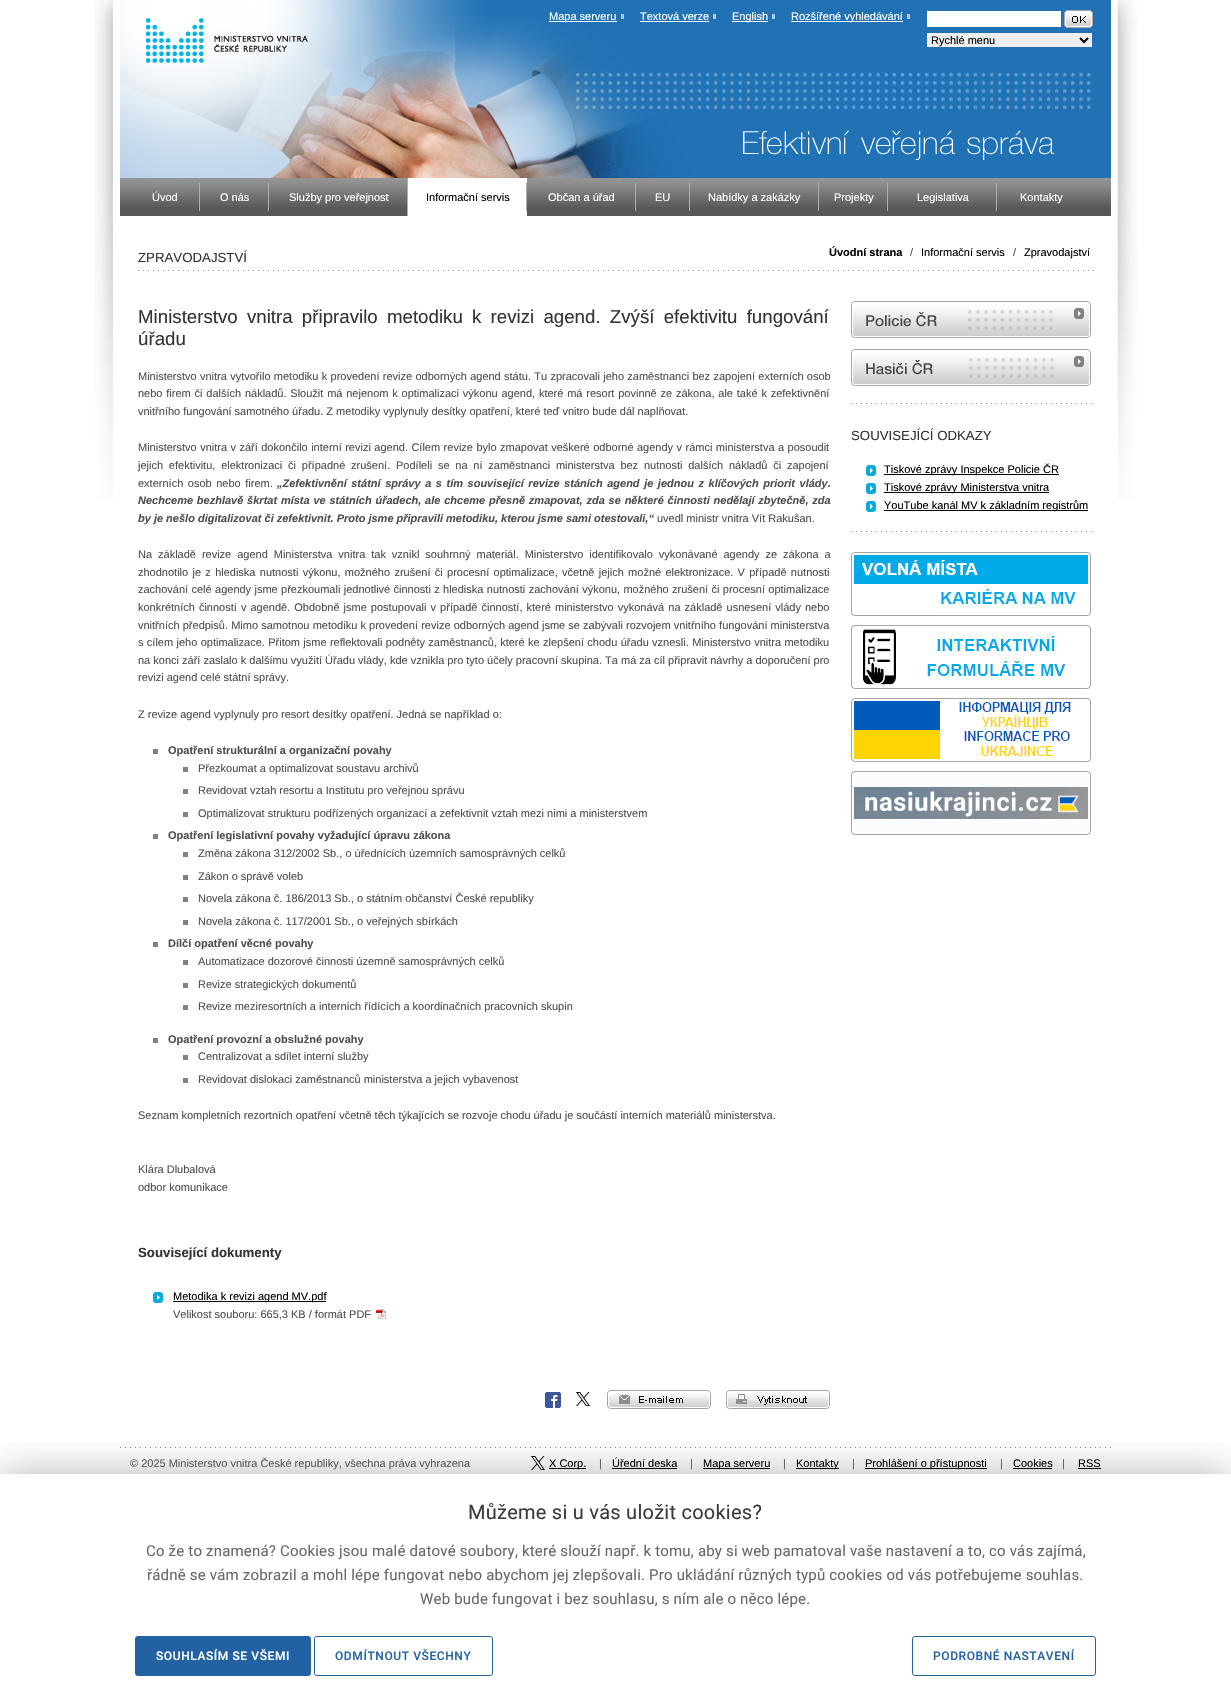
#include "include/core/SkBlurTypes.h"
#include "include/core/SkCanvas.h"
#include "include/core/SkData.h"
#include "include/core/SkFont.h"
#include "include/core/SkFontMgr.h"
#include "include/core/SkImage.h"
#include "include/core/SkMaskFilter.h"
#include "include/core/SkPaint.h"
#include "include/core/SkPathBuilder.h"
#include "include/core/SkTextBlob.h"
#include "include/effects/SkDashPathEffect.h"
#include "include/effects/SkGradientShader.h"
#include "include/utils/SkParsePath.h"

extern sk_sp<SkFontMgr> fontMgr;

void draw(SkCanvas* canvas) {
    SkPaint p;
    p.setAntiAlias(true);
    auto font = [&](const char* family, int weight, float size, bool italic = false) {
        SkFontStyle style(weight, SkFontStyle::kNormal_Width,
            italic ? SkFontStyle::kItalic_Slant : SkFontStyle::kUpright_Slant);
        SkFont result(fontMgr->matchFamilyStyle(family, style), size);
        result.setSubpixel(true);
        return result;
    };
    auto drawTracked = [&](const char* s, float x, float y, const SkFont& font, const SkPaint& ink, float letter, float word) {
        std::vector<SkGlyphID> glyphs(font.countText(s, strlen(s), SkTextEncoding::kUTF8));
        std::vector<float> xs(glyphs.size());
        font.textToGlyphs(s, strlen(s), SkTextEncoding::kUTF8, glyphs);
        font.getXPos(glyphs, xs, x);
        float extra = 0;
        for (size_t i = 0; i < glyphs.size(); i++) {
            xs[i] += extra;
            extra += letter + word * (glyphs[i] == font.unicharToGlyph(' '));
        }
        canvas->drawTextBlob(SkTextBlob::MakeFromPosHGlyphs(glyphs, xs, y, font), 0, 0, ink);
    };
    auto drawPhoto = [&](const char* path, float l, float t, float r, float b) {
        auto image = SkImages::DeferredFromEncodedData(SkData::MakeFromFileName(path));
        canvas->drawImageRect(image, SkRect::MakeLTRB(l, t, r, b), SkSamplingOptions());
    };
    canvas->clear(0xFFFFFFFF);
    drawPhoto("media/1.png", 94, 0, 1137, 501);
    p.setColor(0xFF2172B4);
    canvas->drawRect(SkRect::MakeLTRB(1096, 0, 1111, 178), p);
    drawPhoto("media/2.png", 120, 0, 1096, 178);
    drawPhoto("media/3.png", 144, 16, 312, 64);
    p.setColor(0xFFFFFFFF);
    canvas->drawRect(SkRect::MakeLTRB(549, 21, 617, 22), p);
    auto font1 = font("Liberation Sans", 400, 11);
    canvas->drawString("Mapa serveru", 549, 20, font1, p);
    p.setColor(0xFFADC8DF);
    canvas->drawRect(SkRect::MakeLTRB(621, 14, 624, 19), p);
    p.setColor(0xFFFFFFFF);
    canvas->drawString("Textová verze", 640, 20, font1, p);
    {
        const struct { float l, t, r, b; SkColor color; } items[] = {
            {713, 14, 716, 19, 0xFFADC8DF},
            {640, 21, 709, 22, 0xFFFFFFFF},
            {732, 21, 768, 22, 0xFFFFFFFF},
        };
        for (auto [l, t, r, b, color] : items) {
            p.setColor(color);
            canvas->drawRect(SkRect::MakeLTRB(l, t, r, b), p);
        }
    }
    canvas->drawString("English", 732, 20, font1, p);
    p.setColor(0xFFADC8DF);
    canvas->drawRect(SkRect::MakeLTRB(772, 14, 775, 19), p);
    p.setColor(0xFFFFFFFF);
    canvas->drawRect(SkRect::MakeLTRB(791, 21, 903, 22), p);
    canvas->drawString("Rozšířené vyhledávání", 791, 20, font1, p);
    p.setColor(0xFFADC8DF);
    canvas->drawRect(SkRect::MakeLTRB(907, 14, 910, 19), p);
    p.setColor(0xFFFFFFFF);
    canvas->drawRect(SkRect::MakeLTRB(927, 11, 1061, 27), p);
    drawPhoto("media/4.png", 1064, 10, 1093, 28);
    p.setColor(0xFFEFEFEF);
    canvas->drawRect(SkRect::MakeLTRB(927, 33, 1092, 47), p);
    p.setStyle(SkPaint::kStroke_Style);
    p.setStrokeWidth(2);
    p.setColor(0xFF000000);
    canvas->drawPath(SkPathBuilder().moveTo(1080, 38).lineTo(1084, 42).lineTo(1088, 38).detach(), p);
    p.setStyle(SkPaint::kFill_Style);
    canvas->drawString("Rychlé menu", 931, 44, font1, p);
    p.setColor(0xFF575757);
    canvas->drawRect(SkRect::MakeLTRB(120, 207, 1111, 216), p);
    drawPhoto("media/5.png", 120, 178, 1111, 207);
    p.setColor(0xFFFFFFFF);
    canvas->drawString("Úvod", 152, 201, font1, p);
    p.setColor(0xFFADADAD);
    canvas->drawRect(SkRect::MakeLTRB(199, 183, 200, 211), p);
    p.setColor(0xFFFFFFFF);
    canvas->drawString("O nás", 220, 201, font1, p);
    p.setColor(0xFFADADAD);
    canvas->drawRect(SkRect::MakeLTRB(268, 183, 269, 211), p);
    p.setColor(0xFFFFFFFF);
    canvas->drawString("Služby pro veřejnost", 289, 201, font1, p);
    canvas->drawRect(SkRect::MakeLTRB(408, 178, 527, 216), p);
    p.setColor(0xFFADADAD);
    canvas->drawRect(SkRect::MakeLTRB(407, 178, 408, 216), p);
    p.setColor(0xFF000000);
    canvas->drawString("Informační servis", 426, 201, font1, p);
    p.setColor(0xFFADADAD);
    canvas->drawRect(SkRect::MakeLTRB(526, 183, 527, 211), p);
    p.setColor(0xFFFFFFFF);
    canvas->drawString("Občan a úřad", 548, 201, font1, p);
    p.setColor(0xFFADADAD);
    canvas->drawRect(SkRect::MakeLTRB(635, 183, 636, 211), p);
    p.setColor(0xFFFFFFFF);
    canvas->drawString("EU", 655, 201, font1, p);
    p.setColor(0xFFADADAD);
    canvas->drawRect(SkRect::MakeLTRB(689, 183, 690, 211), p);
    p.setColor(0xFFFFFFFF);
    canvas->drawString("Nabídky a zakázky", 708, 201, font1, p);
    p.setColor(0xFFADADAD);
    canvas->drawRect(SkRect::MakeLTRB(818, 183, 819, 211), p);
    p.setColor(0xFFFFFFFF);
    canvas->drawString("Projekty", 834, 201, font1, p);
    p.setColor(0xFFADADAD);
    canvas->drawRect(SkRect::MakeLTRB(887, 183, 888, 211), p);
    p.setColor(0xFFFFFFFF);
    canvas->drawString("Legislativa", 917, 201, font1, p);
    p.setColor(0xFFADADAD);
    canvas->drawRect(SkRect::MakeLTRB(996, 183, 997, 211), p);
    p.setColor(0xFFFFFFFF);
    canvas->drawString("Kontakty", 1020, 201, font1, p);
    drawPhoto("media/6.png", 138, 270, 1094, 271);
    auto font2 = font("Liberation Sans", 400, 13.25f);
    p.setColor(0xFF333333);
    canvas->drawString("ZPRAVODAJSTVÍ", 138, 262, font2, p);
    auto font3 = font("Liberation Sans", 700, 11);
    p.setColor(0xFF000000);
    canvas->drawString("Úvodní strana", 829, 256, font3, p);
    p.setColor(0xFF4F4F4F);
    canvas->drawString("/", 910, 256, font1, p);
    p.setColor(0xFF000000);
    canvas->drawString("Informační servis", 921, 256, font1, p);
    p.setColor(0xFF4F4F4F);
    canvas->drawString("/", 1013, 256, font1, p);
    p.setColor(0xFF000000);
    canvas->drawString("Zpravodajství", 1024, 256, font1, p);
    auto font4 = font("Liberation Sans", 400, 18.7f);
    p.setColor(0xFF333333);
    drawTracked("Ministerstvo vnitra připravilo metodiku k revizi agend. Zvýší efektivitu fungování", 138, 323, font4, p, 0, 4);
    canvas->drawString("úřadu", 138, 345, font4, p);
    p.setColor(0xFF4F4F4F);
    drawTracked("Ministerstvo vnitra vytvořilo metodiku k provedení revize odborných agend státu. Tu zpracovali jeho zaměstnanci bez zapojení externích osob", 138, 380, font1, p, 0, 0.25f);
    drawTracked("nebo firem či dalších nákladů. Sloužit má nejenom k optimalizaci výkonu agend, které má resort povinně ze zákona, ale také k zefektivnění", 138, 397, font1, p, 0, 0.75f);
    canvas->drawString("vnitřního fungování samotného úřadu. Z metodiky vyplynuly desítky opatření, které teď vnitro bude dál naplňovat.", 138, 415, font1, p);
    drawTracked("Ministerstvo vnitra v září dokončilo interní revizi agend. Cílem revize bylo zmapovat veškeré odborné agendy v rámci ministerstva a posoudit", 138, 451, font1, p, 0, 0.4f);
    drawTracked("jejich efektivitu, elektronizaci či případné zrušení. Podíleli se na ní zaměstnanci ministerstva bez nutnosti dalších nákladů či zapojení", 138, 469, font1, p, 0, 2.75f);
    drawTracked("externích osob nebo firem.", 138, 487, font1, p, 0, 1.5f);
    auto font5 = font("Liberation Sans", 700, 11, true);
    drawTracked("„Zefektivnění státní správy a s tím související revize stáních agend je jednou z klíčových priorit vlády.", 277, 487, font5, p, 0, 1.5f);
    drawTracked("Nechceme bezhlavě škrtat místa ve státních úřadech, ale chceme přesně zmapovat, zda se některé činnosti nedělají zbytečně, zda", 138, 504, font5, p, 0, 0.75f);
    canvas->drawString("by je nešlo digitalizovat či zefektivnit. Proto jsme připravili metodiku, kterou jsme sami otestovali,“", 138, 522, font5, p);
    canvas->drawString("uvedl ministr vnitra Vít Rakušan.", 657, 522, font1, p);
    drawTracked("Na základě revize agend Ministerstva vnitra tak vznikl souhrnný materiál. Ministerstvo identifikovalo vykonávané agendy ze zákona a", 138, 558, font1, p, 0, 2.9f);
    drawTracked("zhodnotilo je z hlediska nutnosti výkonu, možného zrušení či procesní optimalizace, včetně jejich možné elektronizace. V případě nutnosti", 138, 576, font1, p, 0, 1.25f);
    drawTracked("zachování celé agendy jsme přezkoumali jednotlivé činnosti z hlediska nutnosti zachování výkonu, možného zrušení či procesní optimalizace", 138, 593, font1, p, 0, 0.3f);
    drawTracked("konkrétních činností v agendě. Obdobně jsme postupovali v případě činností, které ministerstvo vykonává na základě usnesení vlády nebo", 138, 611, font1, p, 0, 1);
    drawTracked("vnitřních předpisů. Mimo samotnou metodiku k provedení revize odborných agend jsme se zabývali rozvojem vnitřního fungování ministerstva", 138, 629, font1, p, 0, 0.1f);
    drawTracked("s cílem jeho optimalizace. Přitom jsme reflektovali podněty zaměstnanců, které ke zlepšení chodu úřadu vznesli. Ministerstvo vnitra metodiku", 138, 646, font1, p, 0, 0.3f);
    {
        const struct { const char* s; float x, y; } items[] = {
            {"na konci září zaslalo k dalšímu využití Úřadu vlády, kde vznikla pro tyto účely pracovní skupina. Ta má za cíl připravit návrhy a doporučení pro", 138, 664},
            {"revizi agend celé státní správy.", 138, 681},
            {"Z revize agend vyplynuly pro resort desítky opatření. Jedná se například o:", 138, 718},
        };
        for (auto [s, x, y] : items) {
            canvas->drawString(s, x, y, font1, p);
        }
    }
    p.setColor(0xFF818181);
    canvas->drawRect(SkRect::MakeLTRB(153, 749, 158, 754), p);
    p.setColor(0xFF4F4F4F);
    canvas->drawString("Opatření strukturální a organizační povahy", 168, 754, font3, p);
    p.setColor(0xFF818181);
    canvas->drawRect(SkRect::MakeLTRB(183, 767, 188, 772), p);
    p.setColor(0xFF4F4F4F);
    canvas->drawString("Přezkoumat a optimalizovat soustavu archivů", 198, 772, font1, p);
    p.setColor(0xFF818181);
    canvas->drawRect(SkRect::MakeLTRB(183, 789, 188, 794), p);
    p.setColor(0xFF4F4F4F);
    canvas->drawString("Revidovat vztah resortu a Institutu pro veřejnou správu", 198, 794, font1, p);
    p.setColor(0xFF818181);
    canvas->drawRect(SkRect::MakeLTRB(183, 812, 188, 817), p);
    p.setColor(0xFF4F4F4F);
    canvas->drawString("Optimalizovat strukturu podřízených organizací a zefektivnit vztah mezi nimi a ministerstvem", 198, 817, font1, p);
    p.setColor(0xFF818181);
    canvas->drawRect(SkRect::MakeLTRB(153, 834, 158, 839), p);
    p.setColor(0xFF4F4F4F);
    canvas->drawString("Opatření legislativní povahy vyžadující úpravu zákona", 168, 839, font3, p);
    p.setColor(0xFF818181);
    canvas->drawRect(SkRect::MakeLTRB(183, 852, 188, 857), p);
    p.setColor(0xFF4F4F4F);
    canvas->drawString("Změna zákona 312/2002 Sb., o úřednících územních samosprávných celků", 198, 857, font1, p);
    p.setColor(0xFF818181);
    canvas->drawRect(SkRect::MakeLTRB(183, 875, 188, 880), p);
    p.setColor(0xFF4F4F4F);
    canvas->drawString("Zákon o správě voleb", 198, 880, font1, p);
    p.setColor(0xFF818181);
    canvas->drawRect(SkRect::MakeLTRB(183, 897, 188, 902), p);
    p.setColor(0xFF4F4F4F);
    canvas->drawString("Novela zákona č. 186/2013 Sb., o státním občanství České republiky", 198, 902, font1, p);
    p.setColor(0xFF818181);
    canvas->drawRect(SkRect::MakeLTRB(183, 920, 188, 925), p);
    p.setColor(0xFF4F4F4F);
    canvas->drawString("Novela zákona č. 117/2001 Sb., o veřejných sbírkách", 198, 925, font1, p);
    p.setColor(0xFF818181);
    canvas->drawRect(SkRect::MakeLTRB(153, 942, 158, 947), p);
    p.setColor(0xFF4F4F4F);
    canvas->drawString("Dílčí opatření věcné povahy", 168, 947, font3, p);
    p.setColor(0xFF818181);
    canvas->drawRect(SkRect::MakeLTRB(183, 960, 188, 965), p);
    p.setColor(0xFF4F4F4F);
    canvas->drawString("Automatizace dozorové činnosti územně samosprávných celků", 198, 965, font1, p);
    p.setColor(0xFF818181);
    canvas->drawRect(SkRect::MakeLTRB(183, 983, 188, 988), p);
    p.setColor(0xFF4F4F4F);
    canvas->drawString("Revize strategických dokumentů", 198, 988, font1, p);
    p.setColor(0xFF818181);
    canvas->drawRect(SkRect::MakeLTRB(183, 1005, 188, 1010), p);
    p.setColor(0xFF4F4F4F);
    canvas->drawString("Revize meziresortních a interních řídících a koordinačních pracovních skupin", 198, 1010, font1, p);
    p.setColor(0xFF818181);
    canvas->drawRect(SkRect::MakeLTRB(153, 1038, 158, 1043), p);
    p.setColor(0xFF4F4F4F);
    canvas->drawString("Opatření provozní a obslužné povahy", 168, 1043, font3, p);
    p.setColor(0xFF818181);
    canvas->drawRect(SkRect::MakeLTRB(183, 1055, 188, 1060), p);
    p.setColor(0xFF4F4F4F);
    canvas->drawString("Centralizovat a sdílet interní služby", 198, 1060, font1, p);
    p.setColor(0xFF818181);
    canvas->drawRect(SkRect::MakeLTRB(183, 1078, 188, 1083), p);
    p.setColor(0xFF4F4F4F);
    {
        const struct { const char* s; float x, y; } items[] = {
            {"Revidovat dislokaci zaměstnanců ministerstva a jejich vybavenost", 198, 1083},
            {"Seznam kompletních rezortních opatření včetně těch týkajících se rozvoje chodu úřadu je součástí interních materiálů ministerstva.", 138, 1119},
            {"Klára Dlubalová", 138, 1173},
            {"odbor komunikace", 138, 1191},
        };
        for (auto [s, x, y] : items) {
            canvas->drawString(s, x, y, font1, p);
        }
    }
    auto font6 = font("Liberation Sans", 700, 13.25f);
    p.setColor(0xFF333333);
    canvas->drawString("Související dokumenty", 138, 1257, font6, p);
    drawPhoto("media/7.png", 153, 1292, 163, 1303);
    p.setColor(0xFF000000);
    canvas->drawRect(SkRect::MakeLTRB(173, 1301, 326, 1302), p);
    canvas->drawString("Metodika k revizi agend MV.pdf", 173, 1300, font1, p);
    p.setColor(0xFF4F4F4F);
    canvas->drawString("Velikost souboru: 665,3 KB / formát PDF", 173, 1318, font1, p);
    drawPhoto("media/8.png", 376, 1309, 386, 1319);
    drawPhoto("media/9.png", 545, 1392, 561, 1408);
    drawPhoto("media/10.png", 576, 1392, 590, 1406);
    drawPhoto("media/11.png", 607, 1390, 711, 1409);
    drawPhoto("media/12.png", 726, 1390, 830, 1409);
    drawPhoto("media/13.png", 851, 403, 1092, 404);
    drawPhoto("media/14.png", 851, 301, 1091, 338);
    drawPhoto("media/15.png", 851, 349, 1091, 386);
    p.setColor(0xFF333333);
    canvas->drawString("SOUVISEJÍCÍ ODKAZY", 851, 440, font2, p);
    drawPhoto("media/13.png", 851, 531, 1092, 532);
    drawPhoto("media/7.png", 866, 465, 876, 476);
    p.setColor(0xFF000000);
    canvas->drawRect(SkRect::MakeLTRB(884, 474, 1059, 475), p);
    canvas->drawString("Tiskové zprávy Inspekce Policie ČR", 884, 473, font1, p);
    drawPhoto("media/7.png", 866, 483, 876, 494);
    canvas->drawRect(SkRect::MakeLTRB(884, 492, 1049, 493), p);
    canvas->drawString("Tiskové zprávy Ministerstva vnitra", 884, 491, font1, p);
    drawPhoto("media/7.png", 866, 501, 876, 512);
    canvas->drawRect(SkRect::MakeLTRB(884, 510, 1088, 511), p);
    canvas->drawString("YouTube kanál MV k základním registrům", 884, 509, font1, p);
    drawPhoto("media/16.png", 851, 552, 1091, 616);
    drawPhoto("media/17.png", 851, 625, 1091, 689);
    drawPhoto("media/18.png", 851, 698, 1091, 762);
    drawPhoto("media/19.png", 851, 771, 1091, 835);
    drawPhoto("media/20.png", 120, 1447, 1111, 1448);
    p.setColor(0xFF5F5F5F);
    canvas->drawString("© 2025 Ministerstvo vnitra České republiky, všechna práva vyhrazena", 130, 1467, font1, p);
    drawPhoto("media/10.png", 531, 1456, 545, 1470);
    p.setColor(0xFF000000);
    canvas->drawRect(SkRect::MakeLTRB(549, 1468, 586, 1469), p);
    canvas->drawString("X Corp.", 549, 1467, font1, p);
    p.setColor(0xFF5F5F5F);
    canvas->drawString("|", 599, 1467, font1, p);
    p.setColor(0xFF000000);
    canvas->drawString("Úřední deska", 612, 1467, font1, p);
    canvas->drawRect(SkRect::MakeLTRB(612, 1468, 677, 1469), p);
    p.setColor(0xFF5F5F5F);
    canvas->drawString("|", 690, 1467, font1, p);
    p.setColor(0xFF000000);
    canvas->drawRect(SkRect::MakeLTRB(703, 1468, 770, 1469), p);
    canvas->drawString("Mapa serveru", 703, 1467, font1, p);
    p.setColor(0xFF5F5F5F);
    canvas->drawString("|", 783, 1467, font1, p);
    p.setColor(0xFF000000);
    canvas->drawRect(SkRect::MakeLTRB(796, 1468, 839, 1469), p);
    canvas->drawString("Kontakty", 796, 1467, font1, p);
    p.setColor(0xFF5F5F5F);
    canvas->drawString("|", 852, 1467, font1, p);
    p.setColor(0xFF000000);
    canvas->drawRect(SkRect::MakeLTRB(865, 1468, 987, 1469), p);
    canvas->drawString("Prohlášení o přístupnosti", 865, 1467, font1, p);
    p.setColor(0xFF5F5F5F);
    canvas->drawString("|", 1000, 1467, font1, p);
    p.setColor(0xFF000000);
    canvas->drawString("Cookies", 1013, 1467, font1, p);
    canvas->drawRect(SkRect::MakeLTRB(1013, 1468, 1052, 1469), p);
    p.setColor(0xFF5F5F5F);
    canvas->drawString("|", 1062, 1467, font1, p);
    p.setColor(0xFF000000);
    canvas->drawString("RSS", 1078, 1467, font1, p);
    canvas->drawRect(SkRect::MakeLTRB(1078, 1468, 1101, 1469), p);
    canvas->save();
    canvas->clipRect(SkRect::MakeLTRB(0, 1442, 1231, 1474));
    p.setColor(0x663B3B3B);
    p.setMaskFilter(SkMaskFilter::MakeBlur(kNormal_SkBlurStyle, 20));
    canvas->drawRect(SkRect::MakeLTRB(0, 1475, 1231, 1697), p);
    p.setMaskFilter(nullptr);
    canvas->restore();
    auto font7 = font("Roboto", 400, 20);
    p.setColor(0xFF3B3B3B);
    drawTracked("Můžeme si u vás uložit cookies?", 468, 1519, font7, p, 0.25f, 0);
    auto font8 = font("Roboto", 400, 15);
    p.setColor(0xFF686868);
    {
        const struct { const char* s; float x, y; } items[] = {
            {"Co že to znamená? Cookies jsou malé datové soubory, které slouží např. k tomu, aby si web pamatoval vaše nastavení a to, co vás zajímá,", 146, 1556},
            {"řádně se vám zobrazil a mohl lépe fungovat nebo abychom jej zlepšovali. Pro ukládání různých typů cookies od vás potřebujeme souhlas.", 147, 1580},
            {"Web bude fungovat i bez souhlasu, s ním ale o něco lépe.", 420, 1604},
        };
        for (auto [s, x, y] : items) {
            drawTracked(s, x, y, font8, p, 0.19f, 0);
        }
    }
    p.setColor(0xFF2362A2);
    canvas->drawRoundRect(SkRect::MakeLTRB(135.5f, 1636.5f, 310.5f, 1675.5f), 2.5f, 2.5f, p);
    p.setStyle(SkPaint::kStroke_Style);
    p.setStrokeWidth(1);
    canvas->drawRoundRect(SkRect::MakeLTRB(135.5f, 1636.5f, 310.5f, 1675.5f), 2.5f, 2.5f, p);
    auto font9 = font("Roboto", 500, 12);
    p.setStyle(SkPaint::kFill_Style);
    p.setColor(0xFFFFFFFF);
    drawTracked("SOUHLASÍM SE VŠEMI", 156, 1660, font9, p, 0.6f, 0);
    p.setStyle(SkPaint::kStroke_Style);
    p.setColor(0xFF2362A2);
    canvas->drawRoundRect(SkRect::MakeLTRB(314.5f, 1636.5f, 492.5f, 1675.5f), 2.5f, 2.5f, p);
    p.setStyle(SkPaint::kFill_Style);
    drawTracked("ODMÍTNOUT VŠECHNY", 335, 1660, font9, p, 0.6f, 0);
    p.setStyle(SkPaint::kStroke_Style);
    canvas->drawRoundRect(SkRect::MakeLTRB(912.5f, 1636.5f, 1095.5f, 1675.5f), 2.5f, 2.5f, p);
    p.setStyle(SkPaint::kFill_Style);
    drawTracked("PODROBNÉ NASTAVENÍ", 933, 1660, font9, p, 0.6f, 0);
}
